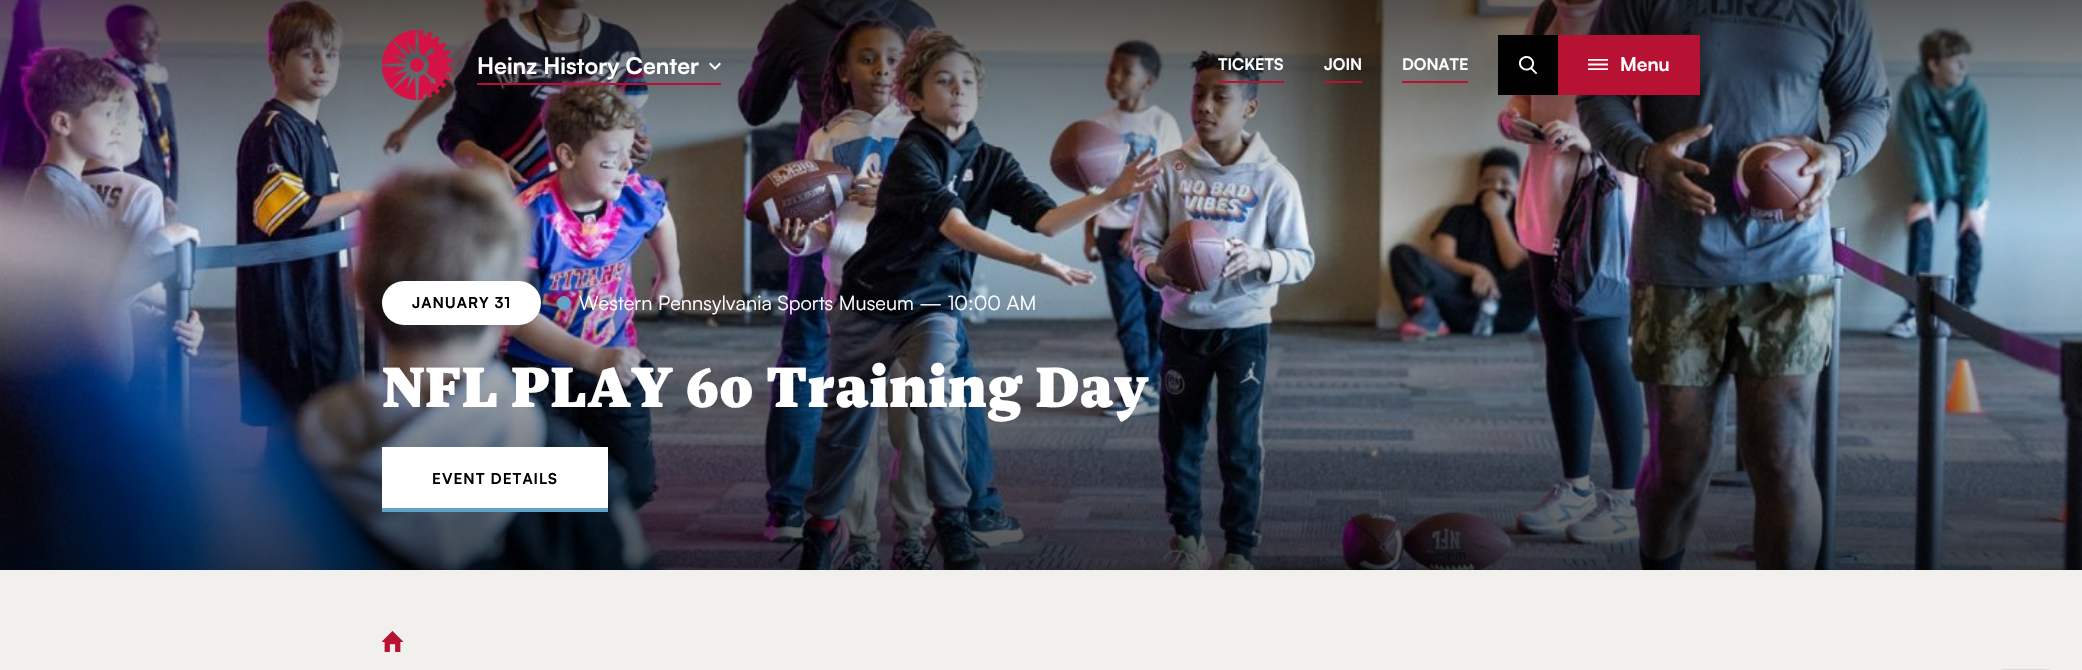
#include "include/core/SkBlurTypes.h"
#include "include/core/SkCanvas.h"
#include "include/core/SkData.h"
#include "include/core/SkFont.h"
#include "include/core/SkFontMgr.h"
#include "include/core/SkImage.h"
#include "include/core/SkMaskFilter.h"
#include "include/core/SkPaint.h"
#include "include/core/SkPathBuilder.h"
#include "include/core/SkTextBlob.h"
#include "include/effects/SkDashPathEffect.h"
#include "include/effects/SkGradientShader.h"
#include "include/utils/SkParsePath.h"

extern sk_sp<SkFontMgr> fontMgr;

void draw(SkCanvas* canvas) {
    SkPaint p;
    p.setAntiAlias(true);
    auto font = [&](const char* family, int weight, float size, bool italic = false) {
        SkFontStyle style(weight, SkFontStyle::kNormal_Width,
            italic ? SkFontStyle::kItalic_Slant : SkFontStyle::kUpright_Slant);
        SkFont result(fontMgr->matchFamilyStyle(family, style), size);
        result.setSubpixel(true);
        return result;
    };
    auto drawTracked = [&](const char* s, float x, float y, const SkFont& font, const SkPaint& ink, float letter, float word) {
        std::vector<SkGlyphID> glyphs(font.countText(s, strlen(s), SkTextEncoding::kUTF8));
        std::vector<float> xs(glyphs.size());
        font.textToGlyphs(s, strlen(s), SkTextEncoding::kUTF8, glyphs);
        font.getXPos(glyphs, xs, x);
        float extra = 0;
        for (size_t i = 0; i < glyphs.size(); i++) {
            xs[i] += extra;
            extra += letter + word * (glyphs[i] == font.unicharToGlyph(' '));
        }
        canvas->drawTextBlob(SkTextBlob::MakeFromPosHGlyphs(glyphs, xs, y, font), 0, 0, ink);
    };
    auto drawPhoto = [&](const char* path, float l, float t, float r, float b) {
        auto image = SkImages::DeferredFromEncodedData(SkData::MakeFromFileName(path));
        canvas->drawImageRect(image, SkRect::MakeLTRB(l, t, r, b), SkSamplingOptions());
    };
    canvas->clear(0xFFF2F0ED);
    drawPhoto("media/5.png", 0, 0, 2082, 570);
    drawPhoto("media/1.png", 382, 30, 452, 100);
    auto font1 = font("Satoshi", 700, 23);
    p.setColor(0xFFFFFFFF);
    canvas->drawString("Heinz History Center", 477, 74, font1, p);
    drawPhoto("media/2.png", 709, 62, 721, 70);
    p.setColor(0xFFB71234);
    canvas->drawRect(SkRect::MakeLTRB(477, 83, 721, 85), p);
    auto font2 = font("Satoshi", 700, 16);
    p.setColor(0xFFFFFFFF);
    canvas->drawString("TICKETS", 1218, 70, font2, p);
    p.setColor(0xFFB71234);
    canvas->drawRect(SkRect::MakeLTRB(1218, 81, 1284, 83), p);
    p.setColor(0xFFFFFFFF);
    canvas->drawString("JOIN", 1324, 70, font2, p);
    p.setColor(0xFFB71234);
    canvas->drawRect(SkRect::MakeLTRB(1324, 81, 1362, 83), p);
    p.setColor(0xFFFFFFFF);
    canvas->drawString("DONATE", 1402, 70, font2, p);
    p.setColor(0xFFB71234);
    canvas->drawRect(SkRect::MakeLTRB(1402, 81, 1468, 83), p);
    p.setColor(0xFF000000);
    canvas->drawRect(SkRect::MakeLTRB(1498, 35, 1558, 95), p);
    drawPhoto("media/3.png", 1519, 56, 1537, 74);
    p.setColor(0xFFB71234);
    canvas->drawRect(SkRect::MakeLTRB(1558, 35, 1700, 95), p);
    drawPhoto("media/4.png", 1588, 59, 1608, 70);
    auto font3 = font("Satoshi", 700, 19);
    p.setColor(0xFFFFFFFF);
    canvas->drawString("Menu", 1620, 71, font3, p);
    canvas->drawRoundRect(SkRect::MakeLTRB(382, 281, 541, 325), 22, 22, p);
    auto font4 = font("Satoshi", 700, 15);
    p.setColor(0xFF000000);
    drawTracked("JANUARY 31", 412, 308, font4, p, 1, 0);
    p.setColor(0xFF64A0C8);
    canvas->drawCircle(564, 303, 7, p);
    auto font5 = font("Satoshi", 400, 20);
    p.setColor(0xFFFFFFFF);
    canvas->drawString("Western Pennsylvania Sports Museum — 10:00 AM", 579, 310, font5, p);
    auto font6 = font("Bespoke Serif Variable", 800, 56);
    canvas->drawString("NFL PLAY 60 Training Day", 382, 407, font6, p);
    canvas->drawRect(SkRect::MakeLTRB(382, 447, 608, 508), p);
    p.setColor(0xFF000000);
    drawTracked("EVENT DETAILS", 432, 484, font4, p, 1, 0);
    p.setColor(0xFF64A0C8);
    canvas->drawRect(SkRect::MakeLTRB(382, 508, 608, 512), p);
    drawPhoto("media/6.png", 382, 631, 403, 652);
    p.setStyle(SkPaint::kStroke_Style);
    p.setStrokeWidth(1);
    p.setColor(0xFFDBDADE);
    canvas->drawRoundRect(SkRect::MakeLTRB(1984.5f, 669.5f, 2066.5f, 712.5f), 41, 41, p);
}
